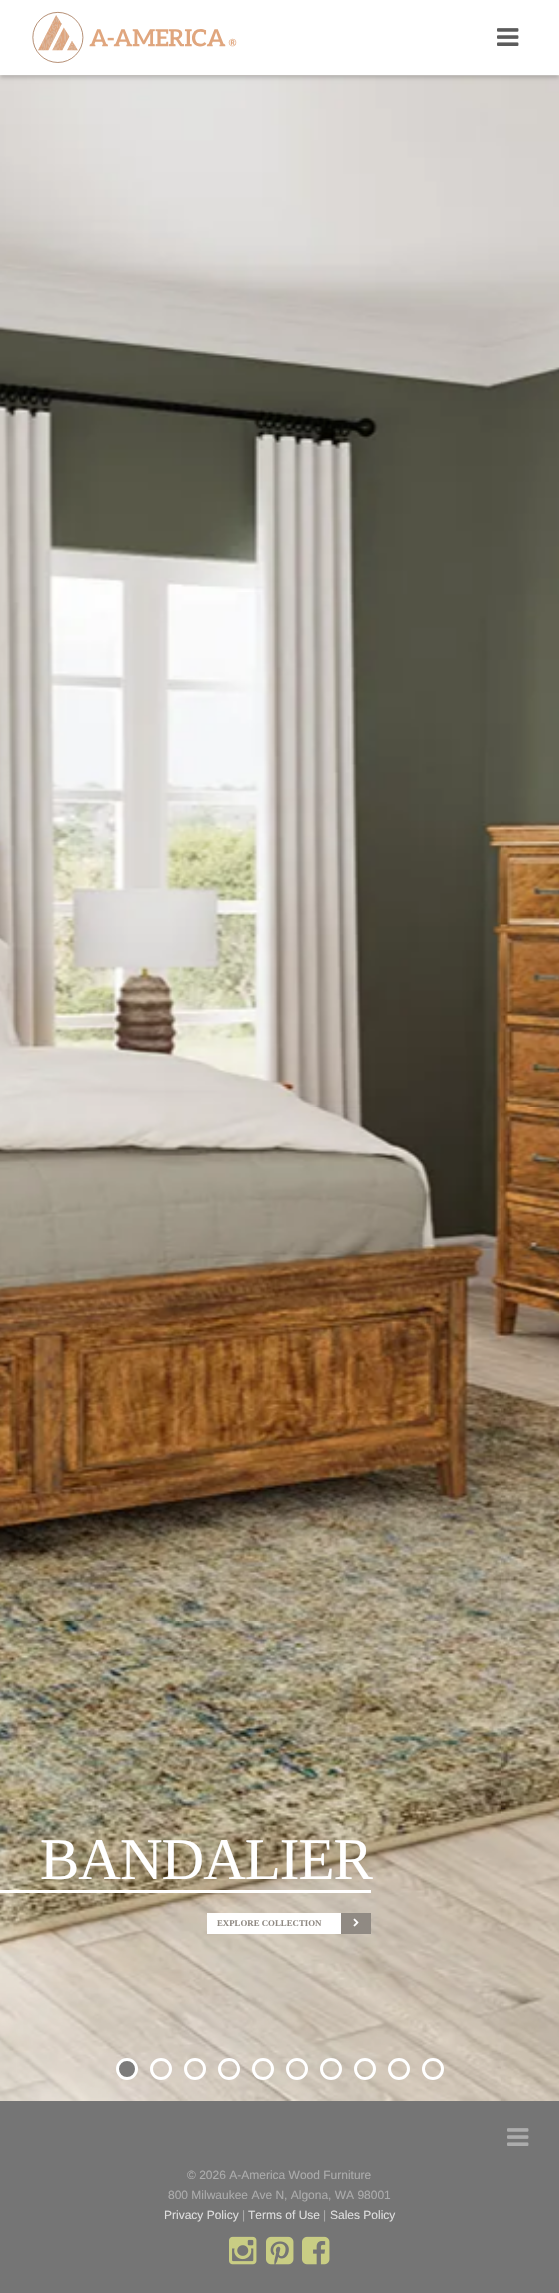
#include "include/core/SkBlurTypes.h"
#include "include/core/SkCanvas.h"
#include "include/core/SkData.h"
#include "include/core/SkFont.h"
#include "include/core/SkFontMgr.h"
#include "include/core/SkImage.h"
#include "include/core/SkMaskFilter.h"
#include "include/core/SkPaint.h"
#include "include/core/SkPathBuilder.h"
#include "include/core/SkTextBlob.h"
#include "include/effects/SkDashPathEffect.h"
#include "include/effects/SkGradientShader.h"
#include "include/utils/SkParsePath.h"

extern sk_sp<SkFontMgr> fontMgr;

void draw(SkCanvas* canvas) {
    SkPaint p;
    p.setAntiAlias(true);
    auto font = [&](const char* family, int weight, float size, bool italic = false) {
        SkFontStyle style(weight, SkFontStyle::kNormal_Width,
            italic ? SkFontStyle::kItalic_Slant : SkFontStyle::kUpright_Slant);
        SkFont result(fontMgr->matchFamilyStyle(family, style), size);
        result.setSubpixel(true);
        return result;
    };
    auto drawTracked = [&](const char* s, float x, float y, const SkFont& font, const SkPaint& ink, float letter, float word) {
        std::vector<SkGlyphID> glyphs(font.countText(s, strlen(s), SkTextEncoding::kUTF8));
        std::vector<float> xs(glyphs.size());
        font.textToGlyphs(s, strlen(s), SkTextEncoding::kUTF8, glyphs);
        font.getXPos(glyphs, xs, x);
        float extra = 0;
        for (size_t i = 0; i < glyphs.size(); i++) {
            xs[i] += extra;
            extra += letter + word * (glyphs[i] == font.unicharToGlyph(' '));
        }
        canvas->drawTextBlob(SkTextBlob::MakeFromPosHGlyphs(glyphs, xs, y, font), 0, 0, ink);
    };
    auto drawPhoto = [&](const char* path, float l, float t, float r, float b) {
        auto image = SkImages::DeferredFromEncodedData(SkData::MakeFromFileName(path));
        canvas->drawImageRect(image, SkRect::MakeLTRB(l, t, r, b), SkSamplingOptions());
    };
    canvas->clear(0xFFE6E2DF);
    drawPhoto("media/3.png", 0, 76, 559, 2101);
    p.setColor(0x2E000000);
    p.setMaskFilter(SkMaskFilter::MakeBlur(kNormal_SkBlurStyle, 2));
    canvas->drawRect(SkRect::MakeLTRB(0, 3, 559, 78), p);
    p.setMaskFilter(nullptr);
    p.setColor(0xFFFFFFFF);
    canvas->drawRect(SkRect::MakeLTRB(0, 0, 559, 75), p);
    drawPhoto("media/1.png", 32, 11, 237, 63);
    drawPhoto("media/2.png", 497, 28, 519, 46);
    canvas->drawRect(SkRect::MakeLTRB(0, 1890, 371, 1893), p);
    auto font1 = font("Liberation Serif", 400, 59);
    drawTracked("BANDALIER", 40, 1879, font1, p, -1, 0);
    canvas->drawRect(SkRect::MakeLTRB(207, 1913, 341, 1934), p);
    auto font2 = font("Liberation Serif", 700, 8.8f);
    p.setColor(0xFF908A83);
    canvas->drawString("EXPLORE COLLECTION", 217, 1926, font2, p);
    canvas->drawRect(SkRect::MakeLTRB(341, 1913, 371, 1934), p);
    drawPhoto("media/4.png", 353, 1918, 359, 1927);
    p.setColor(0xE6727272);
    canvas->drawCircle(127, 2069, 9.5f, p);
    p.setStyle(SkPaint::kStroke_Style);
    p.setStrokeWidth(3);
    p.setColor(0xFFFFFFFF);
    canvas->drawCircle(127, 2069, 9.5f, p);
    canvas->drawCircle(161, 2069, 9.5f, p);
    canvas->drawCircle(195, 2069, 9.5f, p);
    canvas->drawCircle(229, 2069, 9.5f, p);
    canvas->drawCircle(263, 2069, 9.5f, p);
    canvas->drawCircle(297, 2069, 9.5f, p);
    canvas->drawCircle(331, 2069, 9.5f, p);
    canvas->drawCircle(365, 2069, 9.5f, p);
    canvas->drawCircle(399, 2069, 9.5f, p);
    canvas->drawCircle(433, 2069, 9.5f, p);
    p.setStyle(SkPaint::kFill_Style);
    p.setColor(0xFF757575);
    canvas->drawRect(SkRect::MakeLTRB(0, 2101, 559, 2293), p);
    drawPhoto("media/5.png", 507, 2128, 529, 2146);
    auto font3 = font("Liberation Sans", 400, 12);
    p.setColor(0xFFACACAC);
    canvas->drawString("© 2026 A-America Wood Furniture", 187, 2179, font3, p);
    canvas->drawString("800 Milwaukee Ave N, Algona, WA 98001", 168, 2199, font3, p);
    p.setColor(0xFFDEDEDE);
    canvas->drawString("Privacy Policy", 164, 2219, font3, p);
    p.setColor(0xFFACACAC);
    canvas->drawString("|", 242, 2219, font3, p);
    p.setColor(0xFFDEDEDE);
    canvas->drawString("Terms of Use", 248, 2219, font3, p);
    p.setColor(0xFFACACAC);
    canvas->drawString("|", 323, 2219, font3, p);
    p.setColor(0xFFDEDEDE);
    canvas->drawString("Sales Policy", 330, 2219, font3, p);
    drawPhoto("media/6.png", 229, 2236, 257, 2265);
    drawPhoto("media/7.png", 266, 2236, 294, 2265);
    drawPhoto("media/8.png", 302, 2236, 330, 2265);
}
